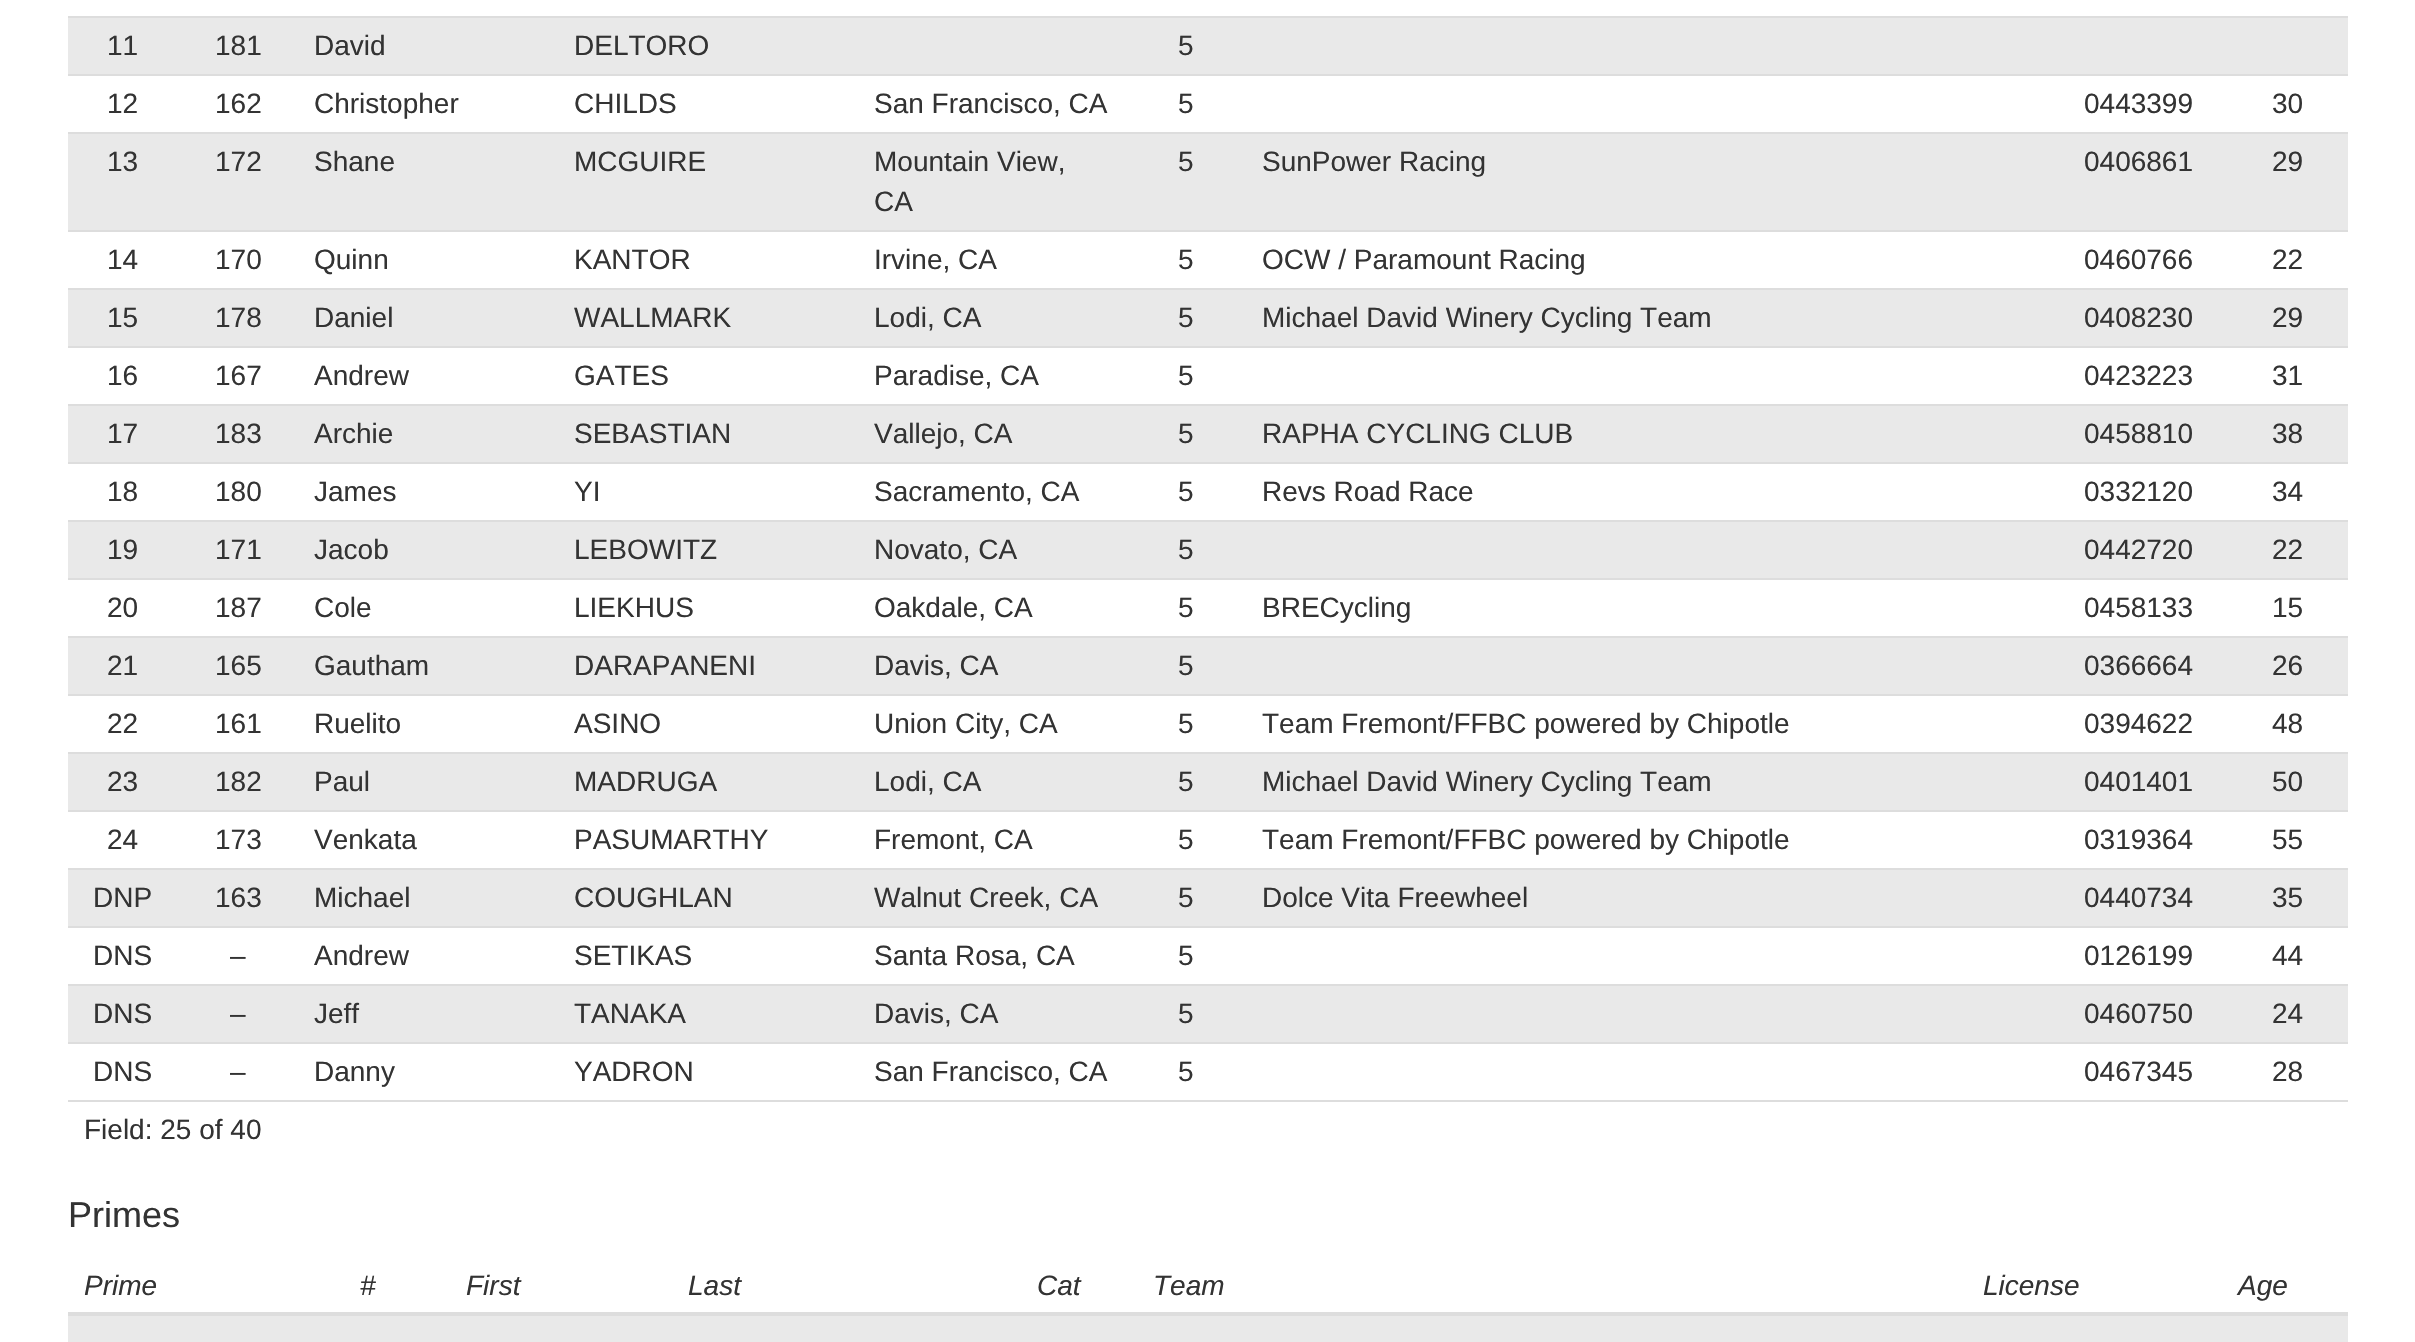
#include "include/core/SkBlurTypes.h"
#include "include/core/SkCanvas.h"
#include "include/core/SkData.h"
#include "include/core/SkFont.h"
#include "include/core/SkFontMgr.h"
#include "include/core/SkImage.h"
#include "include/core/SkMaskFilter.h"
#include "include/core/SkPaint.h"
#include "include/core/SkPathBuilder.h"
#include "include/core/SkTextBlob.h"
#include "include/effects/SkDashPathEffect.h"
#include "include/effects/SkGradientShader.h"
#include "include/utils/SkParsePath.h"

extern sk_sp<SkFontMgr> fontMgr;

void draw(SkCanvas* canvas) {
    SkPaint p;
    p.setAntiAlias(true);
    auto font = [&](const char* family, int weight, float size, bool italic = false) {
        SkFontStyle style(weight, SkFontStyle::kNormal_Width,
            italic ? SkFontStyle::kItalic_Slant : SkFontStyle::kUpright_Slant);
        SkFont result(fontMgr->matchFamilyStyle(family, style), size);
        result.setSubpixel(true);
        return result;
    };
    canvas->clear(0xFFFFFFFF);
    p.setColor(0xFFE9E9E9);
    canvas->drawRect(SkRect::MakeLTRB(68, 18, 2348, 74), p);
    p.setColor(0xFFDDDDDD);
    canvas->drawRect(SkRect::MakeLTRB(68, 16, 2348, 18), p);
    auto font1 = font("Liberation Sans", 400, 28);
    p.setColor(0xFF333333);
    {
        const struct { const char* s; float x, y; } items[] = {
            {"11", 107, 55},
            {"181", 215, 55},
            {"David", 314, 55},
            {"DELTORO", 574, 55},
            {"5", 1178, 55},
            {"12", 107, 113},
            {"162", 215, 113},
            {"Christopher", 314, 113},
            {"CHILDS", 574, 113},
            {"San Francisco, CA", 874, 113},
            {"5", 1178, 113},
            {"0443399", 2084, 113},
        };
        for (auto [s, x, y] : items) {
            canvas->drawString(s, x, y, font1, p);
        }
    }
    p.setColor(0xFFDDDDDD);
    canvas->drawRect(SkRect::MakeLTRB(68, 74, 2348, 76), p);
    p.setColor(0xFF333333);
    canvas->drawString("30", 2272, 113, font1, p);
    p.setColor(0xFFE9E9E9);
    canvas->drawRect(SkRect::MakeLTRB(68, 134, 2348, 230), p);
    p.setColor(0xFF333333);
    {
        const struct { const char* s; float x, y; } items[] = {
            {"13", 107, 171},
            {"172", 215, 171},
            {"Shane", 314, 171},
            {"MCGUIRE", 574, 171},
            {"Mountain View,", 874, 171},
            {"CA", 874, 211},
            {"5", 1178, 171},
            {"SunPower Racing", 1262, 171},
            {"0406861", 2084, 171},
        };
        for (auto [s, x, y] : items) {
            canvas->drawString(s, x, y, font1, p);
        }
    }
    p.setColor(0xFFDDDDDD);
    canvas->drawRect(SkRect::MakeLTRB(68, 132, 2348, 134), p);
    p.setColor(0xFF333333);
    {
        const struct { const char* s; float x, y; } items[] = {
            {"29", 2272, 171},
            {"14", 107, 269},
            {"170", 215, 269},
            {"Quinn", 314, 269},
            {"KANTOR", 574, 269},
            {"Irvine, CA", 874, 269},
            {"5", 1178, 269},
            {"OCW / Paramount Racing", 1262, 269},
            {"0460766", 2084, 269},
        };
        for (auto [s, x, y] : items) {
            canvas->drawString(s, x, y, font1, p);
        }
    }
    p.setColor(0xFFDDDDDD);
    canvas->drawRect(SkRect::MakeLTRB(68, 230, 2348, 232), p);
    p.setColor(0xFF333333);
    canvas->drawString("22", 2272, 269, font1, p);
    p.setColor(0xFFE9E9E9);
    canvas->drawRect(SkRect::MakeLTRB(68, 290, 2348, 346), p);
    p.setColor(0xFF333333);
    {
        const struct { const char* s; float x, y; } items[] = {
            {"15", 107, 327},
            {"178", 215, 327},
            {"Daniel", 314, 327},
            {"WALLMARK", 574, 327},
            {"Lodi, CA", 874, 327},
            {"5", 1178, 327},
            {"Michael David Winery Cycling Team", 1262, 327},
            {"0408230", 2084, 327},
        };
        for (auto [s, x, y] : items) {
            canvas->drawString(s, x, y, font1, p);
        }
    }
    p.setColor(0xFFDDDDDD);
    canvas->drawRect(SkRect::MakeLTRB(68, 288, 2348, 290), p);
    p.setColor(0xFF333333);
    {
        const struct { const char* s; float x, y; } items[] = {
            {"29", 2272, 327},
            {"16", 107, 385},
            {"167", 215, 385},
            {"Andrew", 314, 385},
            {"GATES", 574, 385},
            {"Paradise, CA", 874, 385},
            {"5", 1178, 385},
            {"0423223", 2084, 385},
        };
        for (auto [s, x, y] : items) {
            canvas->drawString(s, x, y, font1, p);
        }
    }
    p.setColor(0xFFDDDDDD);
    canvas->drawRect(SkRect::MakeLTRB(68, 346, 2348, 348), p);
    p.setColor(0xFF333333);
    canvas->drawString("31", 2272, 385, font1, p);
    p.setColor(0xFFE9E9E9);
    canvas->drawRect(SkRect::MakeLTRB(68, 406, 2348, 462), p);
    p.setColor(0xFF333333);
    {
        const struct { const char* s; float x, y; } items[] = {
            {"17", 107, 443},
            {"183", 215, 443},
            {"Archie", 314, 443},
            {"SEBASTIAN", 574, 443},
            {"Vallejo, CA", 874, 443},
            {"5", 1178, 443},
            {"RAPHA CYCLING CLUB", 1262, 443},
            {"0458810", 2084, 443},
        };
        for (auto [s, x, y] : items) {
            canvas->drawString(s, x, y, font1, p);
        }
    }
    p.setColor(0xFFDDDDDD);
    canvas->drawRect(SkRect::MakeLTRB(68, 404, 2348, 406), p);
    p.setColor(0xFF333333);
    {
        const struct { const char* s; float x, y; } items[] = {
            {"38", 2272, 443},
            {"18", 107, 501},
            {"180", 215, 501},
            {"James", 314, 501},
            {"YI", 574, 501},
            {"Sacramento, CA", 874, 501},
            {"5", 1178, 501},
            {"Revs Road Race", 1262, 501},
            {"0332120", 2084, 501},
        };
        for (auto [s, x, y] : items) {
            canvas->drawString(s, x, y, font1, p);
        }
    }
    p.setColor(0xFFDDDDDD);
    canvas->drawRect(SkRect::MakeLTRB(68, 462, 2348, 464), p);
    p.setColor(0xFF333333);
    canvas->drawString("34", 2272, 501, font1, p);
    p.setColor(0xFFE9E9E9);
    canvas->drawRect(SkRect::MakeLTRB(68, 522, 2348, 578), p);
    p.setColor(0xFF333333);
    {
        const struct { const char* s; float x, y; } items[] = {
            {"19", 107, 559},
            {"171", 215, 559},
            {"Jacob", 314, 559},
            {"LEBOWITZ", 574, 559},
            {"Novato, CA", 874, 559},
            {"5", 1178, 559},
            {"0442720", 2084, 559},
        };
        for (auto [s, x, y] : items) {
            canvas->drawString(s, x, y, font1, p);
        }
    }
    p.setColor(0xFFDDDDDD);
    canvas->drawRect(SkRect::MakeLTRB(68, 520, 2348, 522), p);
    p.setColor(0xFF333333);
    {
        const struct { const char* s; float x, y; } items[] = {
            {"22", 2272, 559},
            {"20", 107, 617},
            {"187", 215, 617},
            {"Cole", 314, 617},
            {"LIEKHUS", 574, 617},
            {"Oakdale, CA", 874, 617},
            {"5", 1178, 617},
            {"BRECycling", 1262, 617},
            {"0458133", 2084, 617},
        };
        for (auto [s, x, y] : items) {
            canvas->drawString(s, x, y, font1, p);
        }
    }
    p.setColor(0xFFDDDDDD);
    canvas->drawRect(SkRect::MakeLTRB(68, 578, 2348, 580), p);
    p.setColor(0xFF333333);
    canvas->drawString("15", 2272, 617, font1, p);
    p.setColor(0xFFE9E9E9);
    canvas->drawRect(SkRect::MakeLTRB(68, 638, 2348, 694), p);
    p.setColor(0xFF333333);
    {
        const struct { const char* s; float x, y; } items[] = {
            {"21", 107, 675},
            {"165", 215, 675},
            {"Gautham", 314, 675},
            {"DARAPANENI", 574, 675},
            {"Davis, CA", 874, 675},
            {"5", 1178, 675},
            {"0366664", 2084, 675},
        };
        for (auto [s, x, y] : items) {
            canvas->drawString(s, x, y, font1, p);
        }
    }
    p.setColor(0xFFDDDDDD);
    canvas->drawRect(SkRect::MakeLTRB(68, 636, 2348, 638), p);
    p.setColor(0xFF333333);
    {
        const struct { const char* s; float x, y; } items[] = {
            {"26", 2272, 675},
            {"22", 107, 733},
            {"161", 215, 733},
            {"Ruelito", 314, 733},
            {"ASINO", 574, 733},
            {"Union City, CA", 874, 733},
            {"5", 1178, 733},
            {"Team Fremont/FFBC powered by Chipotle", 1262, 733},
            {"0394622", 2084, 733},
        };
        for (auto [s, x, y] : items) {
            canvas->drawString(s, x, y, font1, p);
        }
    }
    p.setColor(0xFFDDDDDD);
    canvas->drawRect(SkRect::MakeLTRB(68, 694, 2348, 696), p);
    p.setColor(0xFF333333);
    canvas->drawString("48", 2272, 733, font1, p);
    p.setColor(0xFFE9E9E9);
    canvas->drawRect(SkRect::MakeLTRB(68, 754, 2348, 810), p);
    p.setColor(0xFF333333);
    {
        const struct { const char* s; float x, y; } items[] = {
            {"23", 107, 791},
            {"182", 215, 791},
            {"Paul", 314, 791},
            {"MADRUGA", 574, 791},
            {"Lodi, CA", 874, 791},
            {"5", 1178, 791},
            {"Michael David Winery Cycling Team", 1262, 791},
            {"0401401", 2084, 791},
        };
        for (auto [s, x, y] : items) {
            canvas->drawString(s, x, y, font1, p);
        }
    }
    p.setColor(0xFFDDDDDD);
    canvas->drawRect(SkRect::MakeLTRB(68, 752, 2348, 754), p);
    p.setColor(0xFF333333);
    {
        const struct { const char* s; float x, y; } items[] = {
            {"50", 2272, 791},
            {"24", 107, 849},
            {"173", 215, 849},
            {"Venkata", 314, 849},
            {"PASUMARTHY", 574, 849},
            {"Fremont, CA", 874, 849},
            {"5", 1178, 849},
            {"Team Fremont/FFBC powered by Chipotle", 1262, 849},
            {"0319364", 2084, 849},
        };
        for (auto [s, x, y] : items) {
            canvas->drawString(s, x, y, font1, p);
        }
    }
    p.setColor(0xFFDDDDDD);
    canvas->drawRect(SkRect::MakeLTRB(68, 810, 2348, 812), p);
    p.setColor(0xFF333333);
    canvas->drawString("55", 2272, 849, font1, p);
    p.setColor(0xFFE9E9E9);
    canvas->drawRect(SkRect::MakeLTRB(68, 870, 2348, 926), p);
    p.setColor(0xFF333333);
    {
        const struct { const char* s; float x, y; } items[] = {
            {"DNP", 93, 907},
            {"163", 215, 907},
            {"Michael", 314, 907},
            {"COUGHLAN", 574, 907},
            {"Walnut Creek, CA", 874, 907},
            {"5", 1178, 907},
            {"Dolce Vita Freewheel", 1262, 907},
            {"0440734", 2084, 907},
        };
        for (auto [s, x, y] : items) {
            canvas->drawString(s, x, y, font1, p);
        }
    }
    p.setColor(0xFFDDDDDD);
    canvas->drawRect(SkRect::MakeLTRB(68, 868, 2348, 870), p);
    p.setColor(0xFF333333);
    {
        const struct { const char* s; float x, y; } items[] = {
            {"35", 2272, 907},
            {"DNS", 93, 965},
            {"–", 230, 965},
            {"Andrew", 314, 965},
            {"SETIKAS", 574, 965},
            {"Santa Rosa, CA", 874, 965},
            {"5", 1178, 965},
            {"0126199", 2084, 965},
        };
        for (auto [s, x, y] : items) {
            canvas->drawString(s, x, y, font1, p);
        }
    }
    p.setColor(0xFFDDDDDD);
    canvas->drawRect(SkRect::MakeLTRB(68, 926, 2348, 928), p);
    p.setColor(0xFF333333);
    canvas->drawString("44", 2272, 965, font1, p);
    p.setColor(0xFFE9E9E9);
    canvas->drawRect(SkRect::MakeLTRB(68, 986, 2348, 1042), p);
    p.setColor(0xFF333333);
    {
        const struct { const char* s; float x, y; } items[] = {
            {"DNS", 93, 1023},
            {"–", 230, 1023},
            {"Jeff", 314, 1023},
            {"TANAKA", 574, 1023},
            {"Davis, CA", 874, 1023},
            {"5", 1178, 1023},
            {"0460750", 2084, 1023},
        };
        for (auto [s, x, y] : items) {
            canvas->drawString(s, x, y, font1, p);
        }
    }
    p.setColor(0xFFDDDDDD);
    canvas->drawRect(SkRect::MakeLTRB(68, 984, 2348, 986), p);
    p.setColor(0xFF333333);
    {
        const struct { const char* s; float x, y; } items[] = {
            {"24", 2272, 1023},
            {"DNS", 93, 1081},
            {"–", 230, 1081},
            {"Danny", 314, 1081},
            {"YADRON", 574, 1081},
            {"San Francisco, CA", 874, 1081},
            {"5", 1178, 1081},
            {"0467345", 2084, 1081},
        };
        for (auto [s, x, y] : items) {
            canvas->drawString(s, x, y, font1, p);
        }
    }
    p.setColor(0xFFDDDDDD);
    canvas->drawRect(SkRect::MakeLTRB(68, 1042, 2348, 1044), p);
    p.setColor(0xFF333333);
    canvas->drawString("28", 2272, 1081, font1, p);
    p.setColor(0xFFDDDDDD);
    canvas->drawRect(SkRect::MakeLTRB(68, 1100, 2348, 1102), p);
    p.setColor(0xFF333333);
    canvas->drawString("Field: 25 of 40", 84, 1139, font1, p);
    auto font2 = font("Liberation Sans", 400, 36);
    canvas->drawString("Primes", 68, 1227, font2, p);
    auto font3 = font("Liberation Sans", 400, 28, true);
    {
        const struct { const char* s; float x, y; } items[] = {
            {"Prime", 84, 1295},
            {"#", 360, 1295},
            {"First", 466, 1295},
            {"Last", 688, 1295},
            {"Cat", 1037, 1295},
            {"Team", 1153, 1295},
            {"License", 1983, 1295},
        };
        for (auto [s, x, y] : items) {
            canvas->drawString(s, x, y, font3, p);
        }
    }
    p.setColor(0xFFDDDDDD);
    canvas->drawRect(SkRect::MakeLTRB(68, 1312, 2348, 1316), p);
    p.setColor(0xFF333333);
    canvas->drawString("Age", 2238, 1295, font3, p);
    p.setColor(0xFFE9E9E9);
    canvas->drawRect(SkRect::MakeLTRB(68, 1316, 2348, 1342), p);
}
